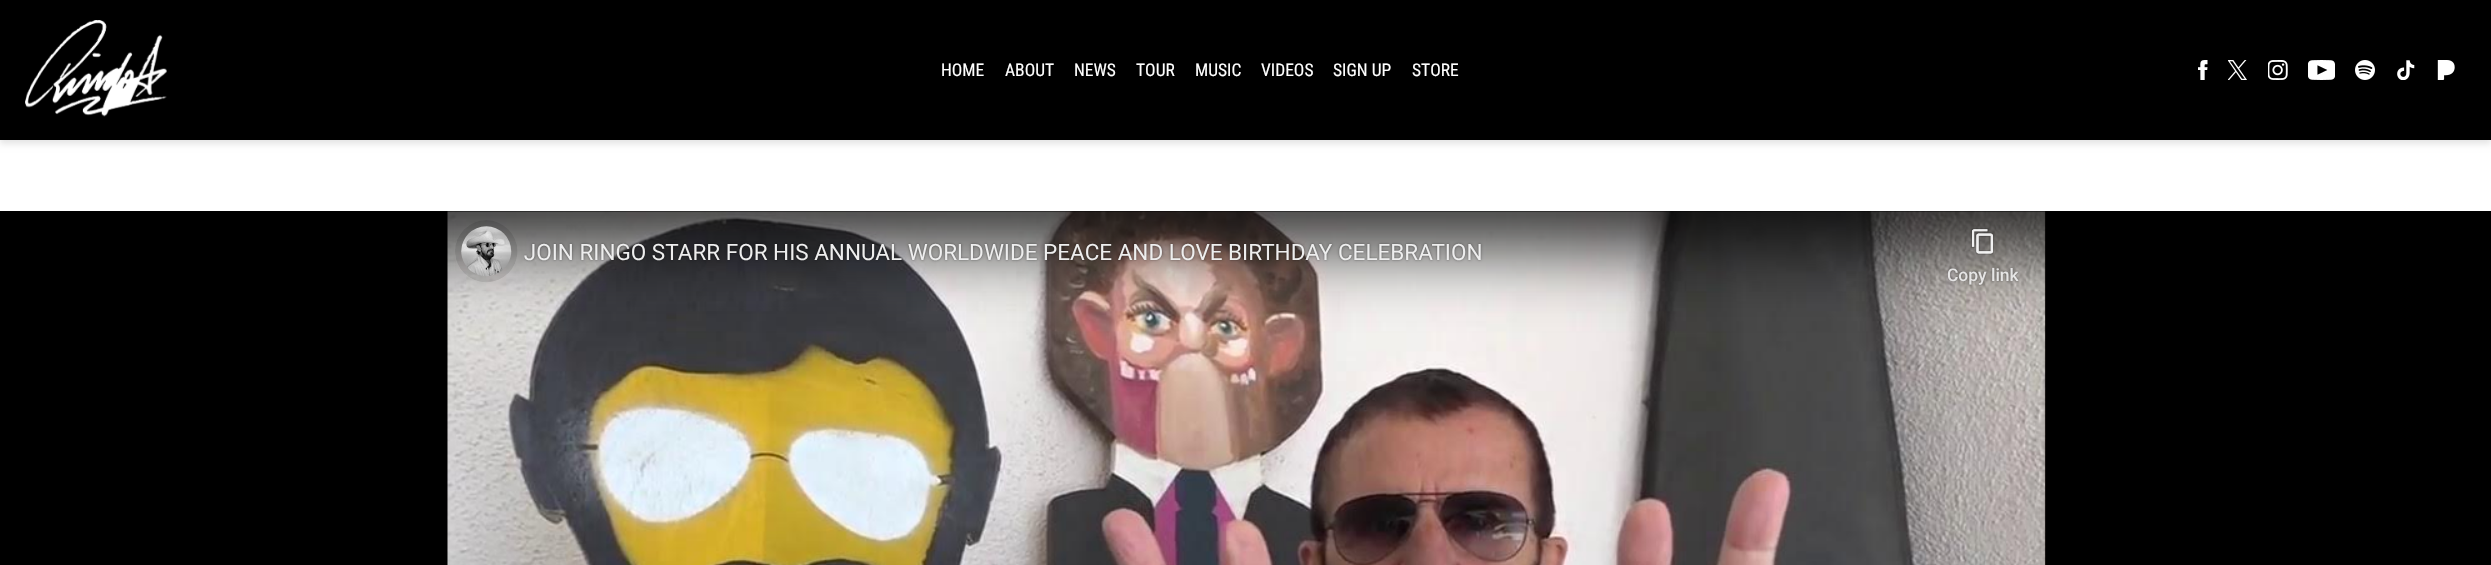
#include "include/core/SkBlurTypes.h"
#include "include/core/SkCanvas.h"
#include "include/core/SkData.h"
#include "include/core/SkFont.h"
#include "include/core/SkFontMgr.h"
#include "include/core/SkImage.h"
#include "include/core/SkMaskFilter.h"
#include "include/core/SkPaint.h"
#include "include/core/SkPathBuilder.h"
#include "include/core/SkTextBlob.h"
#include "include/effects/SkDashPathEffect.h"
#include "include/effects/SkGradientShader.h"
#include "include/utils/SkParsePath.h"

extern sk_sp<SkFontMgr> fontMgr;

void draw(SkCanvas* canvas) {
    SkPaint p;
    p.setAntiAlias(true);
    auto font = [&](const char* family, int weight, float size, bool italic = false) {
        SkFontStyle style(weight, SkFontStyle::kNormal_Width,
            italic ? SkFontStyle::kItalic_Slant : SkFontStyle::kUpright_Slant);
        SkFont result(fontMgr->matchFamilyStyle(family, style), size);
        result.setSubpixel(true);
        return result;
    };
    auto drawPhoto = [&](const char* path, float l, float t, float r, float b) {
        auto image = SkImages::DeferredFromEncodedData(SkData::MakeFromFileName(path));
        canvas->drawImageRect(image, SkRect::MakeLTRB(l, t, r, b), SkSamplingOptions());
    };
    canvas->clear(0xFFFFFFFF);
    p.setColor(0x1A000000);
    p.setMaskFilter(SkMaskFilter::MakeBlur(kNormal_SkBlurStyle, 3));
    canvas->drawRect(SkRect::MakeLTRB(0, 4, 2491, 144), p);
    p.setMaskFilter(nullptr);
    p.setColor(0xFF000000);
    canvas->drawRect(SkRect::MakeLTRB(0, 0, 2491, 140), p);
    drawPhoto("media/1.png", 25, 20, 167, 117);
    auto font1 = font("Roboto Condensed", 400, 17.5f);
    p.setColor(0xFFFFFFFF);
    {
        const struct { const char* s; float x, y; } items[] = {
            {"HOME", 941, 76},
            {"ABOUT", 1005, 76},
            {"NEWS", 1074, 76},
            {"TOUR", 1136, 76},
            {"MUSIC", 1195, 76},
            {"VIDEOS", 1261, 76},
            {"SIGN UP", 1333, 76},
            {"STORE", 1412, 76},
        };
        for (auto [s, x, y] : items) {
            canvas->drawString(s, x, y, font1, p);
        }
    }
    drawPhoto("media/2.png", 2198, 60, 2208, 80);
    drawPhoto("media/3.png", 2228, 60, 2247, 80);
    drawPhoto("media/4.png", 2268, 60, 2288, 80);
    drawPhoto("media/5.png", 2308, 60, 2335, 80);
    drawPhoto("media/6.png", 2355, 60, 2375, 80);
    drawPhoto("media/7.png", 2397, 60, 2415, 80);
    drawPhoto("media/8.png", 2437, 60, 2455, 80);
    p.setColor(0xFF000000);
    canvas->drawRect(SkRect::MakeLTRB(0, 211, 2491, 565), p);
    drawPhoto("media/9.png", 447, 211, 2046, 565);
}
